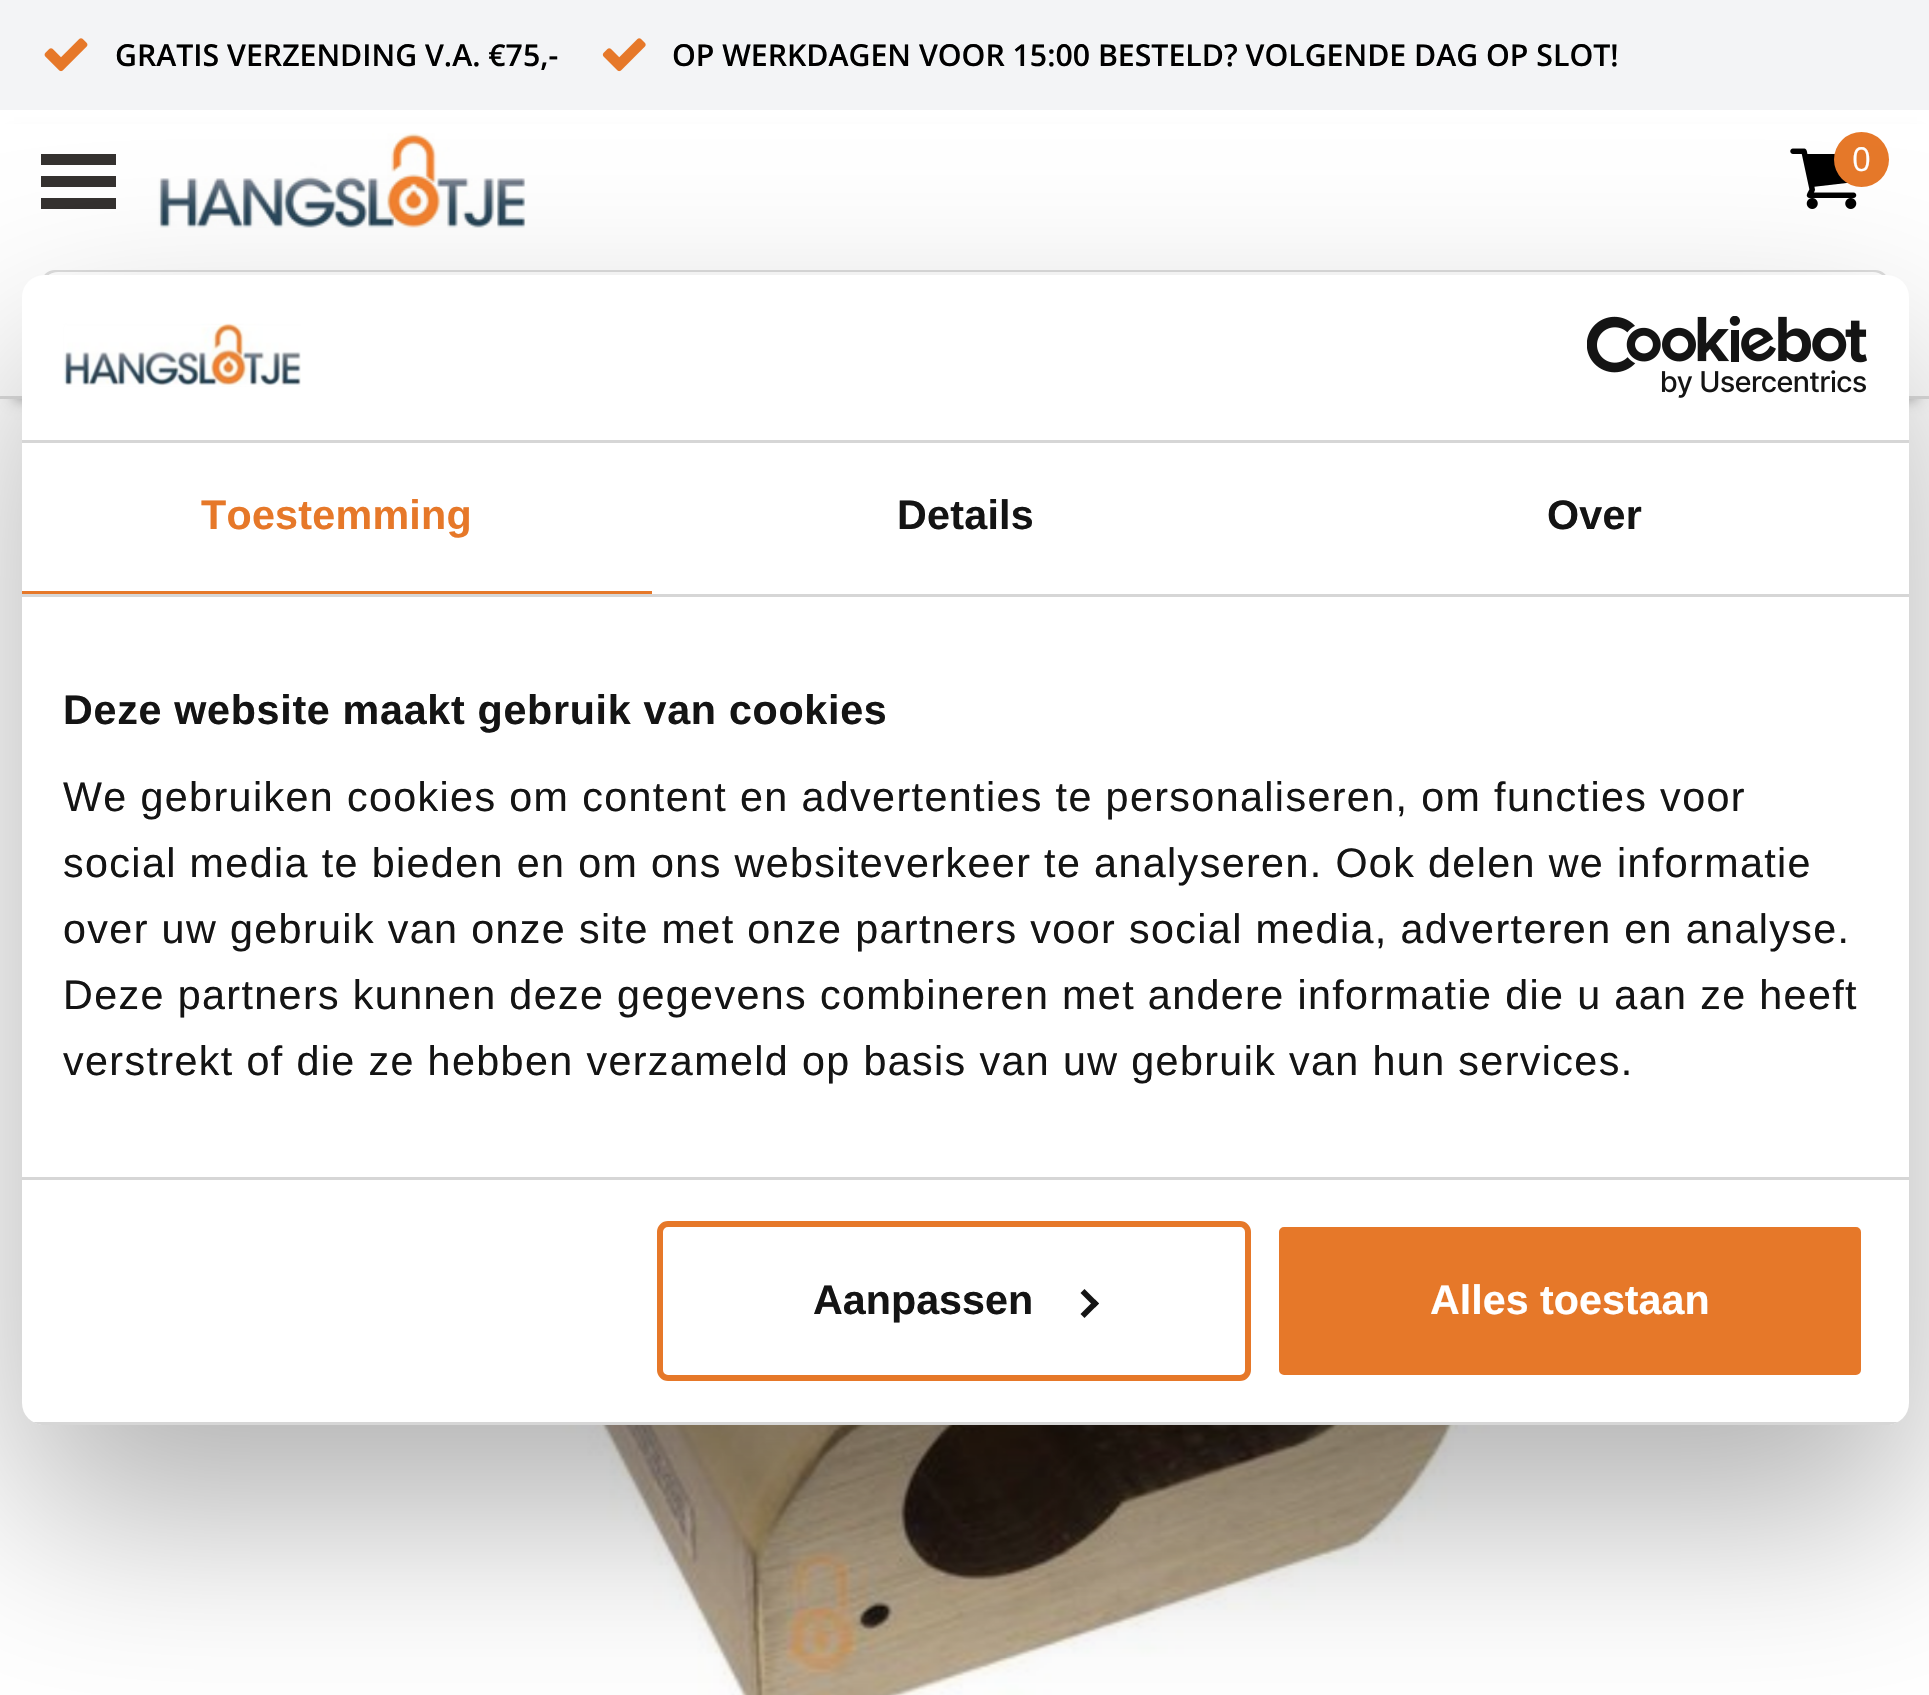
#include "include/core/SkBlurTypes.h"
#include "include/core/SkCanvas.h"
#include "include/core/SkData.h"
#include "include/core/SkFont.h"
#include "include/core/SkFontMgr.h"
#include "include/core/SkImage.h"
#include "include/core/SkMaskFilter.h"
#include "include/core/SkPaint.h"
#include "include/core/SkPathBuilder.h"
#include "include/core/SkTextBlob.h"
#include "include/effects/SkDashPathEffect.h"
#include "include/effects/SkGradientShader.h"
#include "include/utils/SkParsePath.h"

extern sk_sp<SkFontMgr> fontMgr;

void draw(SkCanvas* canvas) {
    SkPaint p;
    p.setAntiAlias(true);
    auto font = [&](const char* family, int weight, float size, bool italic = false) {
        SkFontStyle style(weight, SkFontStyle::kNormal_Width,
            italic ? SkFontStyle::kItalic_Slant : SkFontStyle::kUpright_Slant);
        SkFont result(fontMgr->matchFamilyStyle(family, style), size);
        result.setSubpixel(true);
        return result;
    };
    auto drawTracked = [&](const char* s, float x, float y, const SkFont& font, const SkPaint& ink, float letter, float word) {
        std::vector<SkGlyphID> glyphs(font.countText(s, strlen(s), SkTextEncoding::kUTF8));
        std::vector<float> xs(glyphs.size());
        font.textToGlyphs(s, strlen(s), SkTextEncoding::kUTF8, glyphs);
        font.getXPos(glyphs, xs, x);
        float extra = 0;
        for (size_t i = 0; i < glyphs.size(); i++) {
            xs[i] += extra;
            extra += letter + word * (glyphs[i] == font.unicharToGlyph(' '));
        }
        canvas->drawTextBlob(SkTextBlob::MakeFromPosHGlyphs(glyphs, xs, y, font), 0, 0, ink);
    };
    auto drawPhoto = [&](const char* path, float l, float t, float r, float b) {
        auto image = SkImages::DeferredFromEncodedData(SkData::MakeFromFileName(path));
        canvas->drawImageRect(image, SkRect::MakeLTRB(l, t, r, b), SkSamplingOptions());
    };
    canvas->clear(0xFFFFFFFF);
    p.setColor(0xFFF3F4F6);
    canvas->drawRect(SkRect::MakeLTRB(0, 0, 1929, 110), p);
    drawPhoto("media/1.png", 44, 38, 88, 72);
    auto font1 = font("Open Sans", 600, 30.25f);
    p.setColor(0xFF000000);
    canvas->drawString("GRATIS VERZENDING V.A. €75,-", 115, 66, font1, p);
    drawPhoto("media/2.png", 602, 38, 646, 72);
    canvas->drawString("OP WERKDAGEN VOOR 15:00 BESTELD? VOLGENDE DAG OP SLOT!", 672, 66, font1, p);
    p.setColor(0x66000000);
    p.setMaskFilter(SkMaskFilter::MakeBlur(kNormal_SkBlurStyle, 7));
    canvas->drawRect(SkRect::MakeLTRB(14, 138, 1917, 399), p);
    p.setMaskFilter(nullptr);
    {
        const struct { float l, t, r, b; SkColor color; } items[] = {
            {0, 124, 1929, 396, 0xFFFFFFFF},
            {0, 396, 1929, 399, 0xFFDDDDDD},
            {41, 154, 116, 165, 0xFF34312F},
            {41, 176, 116, 187, 0xFF34312F},
            {41, 198, 116, 209, 0xFF34312F},
        };
        for (auto [l, t, r, b, color] : items) {
            p.setColor(color);
            canvas->drawRect(SkRect::MakeLTRB(l, t, r, b), p);
        }
    }
    drawPhoto("media/3.png", 158, 133, 526, 228);
    drawPhoto("media/4.png", 1790, 148, 1857, 209);
    p.setColor(0xFFE67829);
    canvas->drawCircle(1861.5f, 159.5f, 27.5f, p);
    auto font2 = font("Open Sans", 400, 33);
    p.setColor(0xFFFFFFFF);
    canvas->drawString("0", 1852, 171, font2, p);
    p.setStyle(SkPaint::kStroke_Style);
    p.setStrokeWidth(3);
    p.setColor(0xFFDDDDDD);
    canvas->drawRoundRect(SkRect::MakeLTRB(42.5f, 271.5f, 1887.5f, 378.5f), 12.5f, 12.5f, p);
    p.setStyle(SkPaint::kFill_Style);
    p.setColor(0xFFFFFFFF);
    canvas->drawRoundRect(SkRect::MakeLTRB(44, 272, 1887, 377), 14, 14, p);
    drawPhoto("media/5.png", 455, 1425, 1490, 1695);
    p.setColor(0x4D000000);
    p.setMaskFilter(SkMaskFilter::MakeBlur(kNormal_SkBlurStyle, 93.5f));
    canvas->drawRoundRect(SkRect::MakeLTRB(22, 363, 1909, 1513), 22, 22, p);
    p.setMaskFilter(nullptr);
    p.setColor(0xFFFFFFFF);
    canvas->drawRoundRect(SkRect::MakeLTRB(22, 275, 1909, 1425), 22, 22, p);
    p.setColor(0xFFD6D6D6);
    canvas->drawRect(SkRect::MakeLTRB(22, 440, 1909, 443), p);
    drawPhoto("media/6.png", 63, 323, 301, 387);
    drawPhoto("media/7.png", 1587, 316, 1867, 398);
    canvas->drawRect(SkRect::MakeLTRB(22, 594, 1909, 597), p);
    p.setColor(0xFFE67829);
    canvas->drawRect(SkRect::MakeLTRB(22, 591, 652, 594), p);
    auto font3 = font("Liberation Sans", 700, 41.25f);
    drawTracked("Toestemming", 201, 529, font3, p, 0.25f, 0);
    p.setColor(0xFF141414);
    drawTracked("Details", 897, 529, font3, p, 0.25f, 0);
    drawTracked("Over", 1547, 529, font3, p, 0.25f, 0);
    p.setColor(0xFFD6D6D6);
    canvas->drawRect(SkRect::MakeLTRB(22, 1177, 1909, 1180), p);
    p.setColor(0xFF141414);
    drawTracked("Deze website maakt gebruik van cookies", 63, 724, font3, p, 0.7f, 0);
    auto font4 = font("Liberation Sans", 400, 41.25f);
    {
        const struct { const char* s; float x, y; } items[] = {
            {"We gebruiken cookies om content en advertenties te personaliseren, om functies voor", 63, 811},
            {"social media te bieden en om ons websiteverkeer te analyseren. Ook delen we informatie", 63, 877},
            {"over uw gebruik van onze site met onze partners voor social media, adverteren en analyse.", 63, 943},
            {"Deze partners kunnen deze gegevens combineren met andere informatie die u aan ze heeft", 63, 1009},
            {"verstrekt of die ze hebben verzameld op basis van uw gebruik van hun services.", 63, 1075},
        };
        for (auto [s, x, y] : items) {
            drawTracked(s, x, y, font4, p, 1.38f, 0);
        }
    }
    canvas->save();
    canvas->clipPath(SkPathBuilder().moveTo(44, 275).lineTo(1887, 275).cubicTo(1899, 275, 1909, 285, 1909, 297).lineTo(1909, 1403).cubicTo(1909, 1415, 1899, 1425, 1887, 1425).lineTo(44, 1425).cubicTo(32, 1425, 22, 1415, 22, 1403).lineTo(22, 297).cubicTo(22, 285, 32, 275, 44, 275).close().detach(), true);
    p.setColor(0xFFD6D6D6);
    canvas->drawRect(SkRect::MakeLTRB(33, 1422, 1898, 1425), p);
    canvas->restore();
    p.setStyle(SkPaint::kStroke_Style);
    p.setStrokeWidth(6);
    p.setColor(0xFFE67829);
    canvas->drawRoundRect(SkRect::MakeLTRB(660, 1224, 1248, 1378), 8, 8, p);
    p.setStyle(SkPaint::kFill_Style);
    p.setColor(0xFF141414);
    canvas->drawString("Aanpassen", 813, 1314, font3, p);
    canvas->drawPath(SkPathBuilder().moveTo(1084.5f, 1289).lineTo(1099, 1303.5f).lineTo(1095, 1307.5f).lineTo(1080.5f, 1293).close().detach(), p);
    canvas->drawPath(SkPathBuilder().moveTo(1095, 1299.5f).lineTo(1099, 1303.5f).lineTo(1084.5f, 1318).lineTo(1080.5f, 1314).close().detach(), p);
    p.setColor(0xFFE67829);
    canvas->drawRoundRect(SkRect::MakeLTRB(1276, 1224, 1864, 1378), 8, 8, p);
    p.setStyle(SkPaint::kStroke_Style);
    p.setColor(0xFFFFFFFF);
    canvas->drawRoundRect(SkRect::MakeLTRB(1276, 1224, 1864, 1378), 8, 8, p);
    p.setStyle(SkPaint::kFill_Style);
    canvas->drawString("Alles toestaan", 1430, 1314, font3, p);
}
